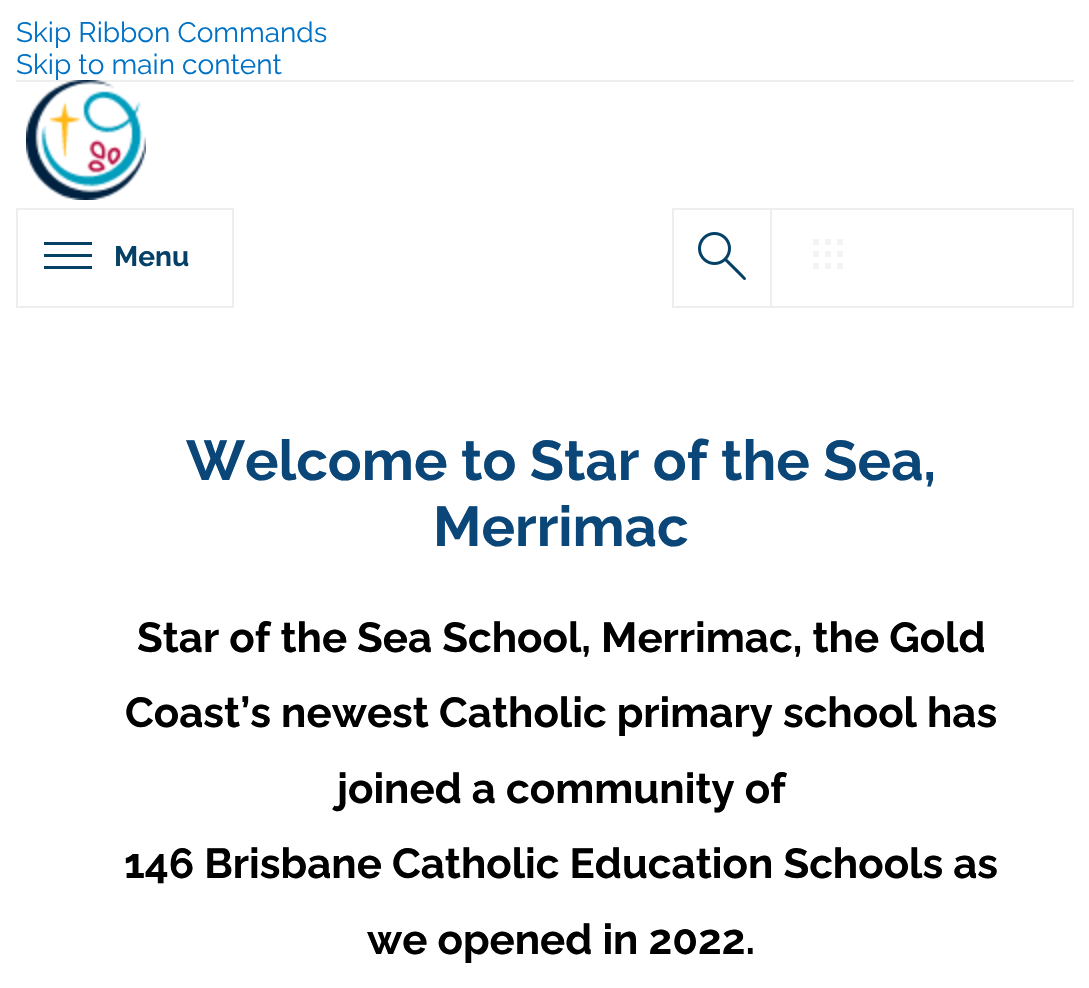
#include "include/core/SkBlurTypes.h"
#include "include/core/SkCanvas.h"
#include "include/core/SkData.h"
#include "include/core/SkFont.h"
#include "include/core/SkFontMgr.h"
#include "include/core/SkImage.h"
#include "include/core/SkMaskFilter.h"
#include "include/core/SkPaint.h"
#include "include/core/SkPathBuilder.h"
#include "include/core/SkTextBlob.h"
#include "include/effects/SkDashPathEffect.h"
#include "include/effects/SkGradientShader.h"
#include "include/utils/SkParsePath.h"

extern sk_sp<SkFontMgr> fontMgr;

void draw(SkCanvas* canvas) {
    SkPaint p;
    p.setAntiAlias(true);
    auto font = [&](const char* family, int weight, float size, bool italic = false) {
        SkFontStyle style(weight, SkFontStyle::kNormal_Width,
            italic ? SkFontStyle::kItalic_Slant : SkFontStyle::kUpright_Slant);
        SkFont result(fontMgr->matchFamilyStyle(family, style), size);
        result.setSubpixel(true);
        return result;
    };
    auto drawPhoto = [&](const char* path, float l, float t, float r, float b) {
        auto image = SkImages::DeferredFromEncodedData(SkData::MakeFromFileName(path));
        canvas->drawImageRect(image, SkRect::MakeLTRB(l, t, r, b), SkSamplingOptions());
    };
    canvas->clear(0xFFFFFFFF);
    auto font1 = font("Raleway", 400, 28);
    p.setColor(0xFF0072C6);
    canvas->drawString("Skip Ribbon Commands", 16, 42, font1, p);
    canvas->drawString("Skip to main content", 16, 74, font1, p);
    p.setColor(0xFFEEEEEE);
    canvas->drawRect(SkRect::MakeLTRB(16, 80, 1074, 82), p);
    drawPhoto("media/1.png", 26, 80, 146, 200);
    p.setStyle(SkPaint::kStroke_Style);
    p.setStrokeWidth(2);
    canvas->drawRect(SkRect::MakeLTRB(17, 209, 233, 307), p);
    p.setStyle(SkPaint::kFill_Style);
    p.setColor(0xFF054166);
    canvas->drawPath(SkPathBuilder().moveTo(92, 245).lineTo(44, 245).lineTo(44, 242).lineTo(92, 242).close().moveTo(92, 269).lineTo(44, 269).lineTo(44, 266).lineTo(92, 266).close().moveTo(92, 257).lineTo(44, 257).lineTo(44, 254).lineTo(92, 254).close().detach(), p);
    auto font2 = font("Raleway", 700, 28);
    canvas->drawString("Menu", 114, 266, font2, p);
    p.setStyle(SkPaint::kStroke_Style);
    p.setColor(0xFFEEEEEE);
    canvas->drawRect(SkRect::MakeLTRB(771, 209, 1073, 307), p);
    canvas->drawRect(SkRect::MakeLTRB(673, 209, 771, 307), p);
    drawPhoto("media/2.png", 698, 232, 746, 280);
    drawPhoto("media/3.png", 813, 239, 843, 269);
    auto font3 = font("Raleway", 700, 56);
    p.setStyle(SkPaint::kFill_Style);
    p.setColor(0xFF0A4677);
    canvas->drawString("Welcome to Star of the Sea,", 186, 480, font3, p);
    canvas->drawString("Merrimac", 433, 546, font3, p);
    auto font4 = font("Raleway", 700, 42);
    p.setColor(0xFF000000);
    {
        const struct { const char* s; float x, y; } items[] = {
            {"Star of the Sea School, Merrimac, the Gold", 137, 652},
            {"Coast’s newest Catholic primary school has", 125, 727},
            {"joined a community of", 337, 803},
            {"146 Brisbane Catholic Education Schools as", 124, 878},
            {"we opened in 2022.", 367, 954},
        };
        for (auto [s, x, y] : items) {
            canvas->drawString(s, x, y, font4, p);
        }
    }
}
